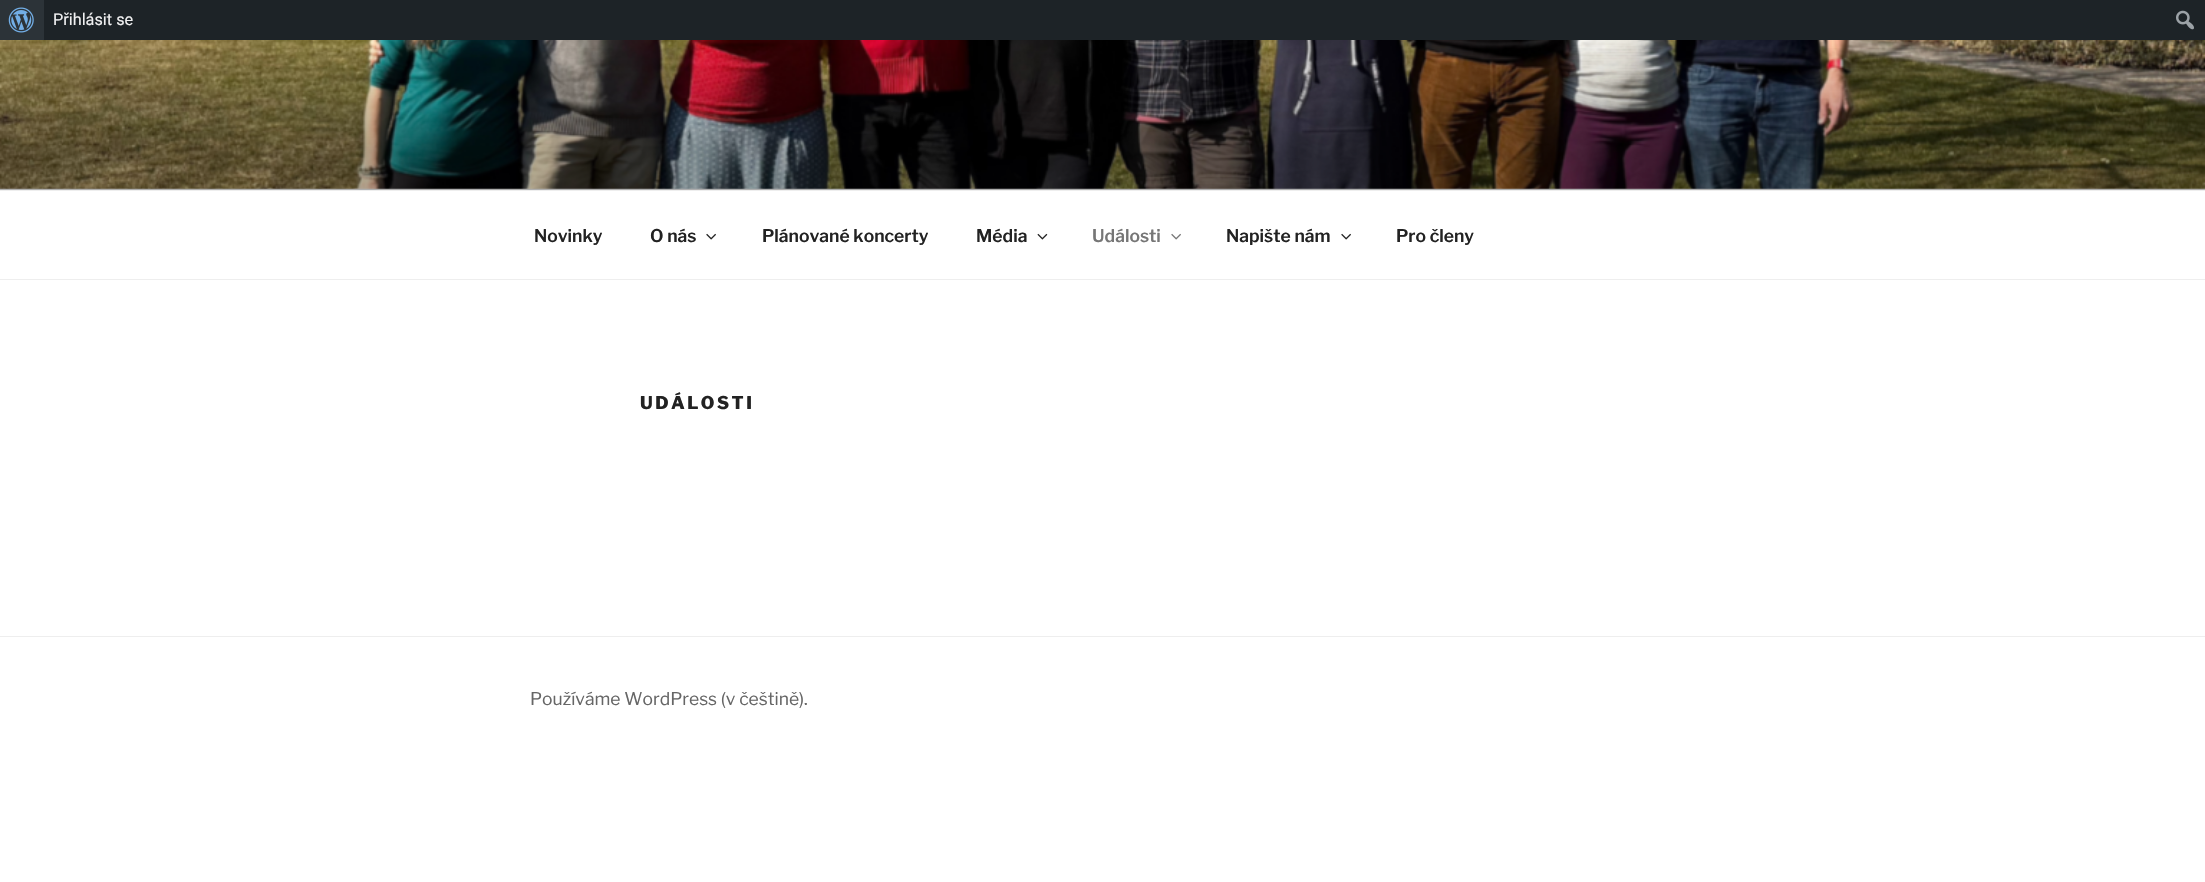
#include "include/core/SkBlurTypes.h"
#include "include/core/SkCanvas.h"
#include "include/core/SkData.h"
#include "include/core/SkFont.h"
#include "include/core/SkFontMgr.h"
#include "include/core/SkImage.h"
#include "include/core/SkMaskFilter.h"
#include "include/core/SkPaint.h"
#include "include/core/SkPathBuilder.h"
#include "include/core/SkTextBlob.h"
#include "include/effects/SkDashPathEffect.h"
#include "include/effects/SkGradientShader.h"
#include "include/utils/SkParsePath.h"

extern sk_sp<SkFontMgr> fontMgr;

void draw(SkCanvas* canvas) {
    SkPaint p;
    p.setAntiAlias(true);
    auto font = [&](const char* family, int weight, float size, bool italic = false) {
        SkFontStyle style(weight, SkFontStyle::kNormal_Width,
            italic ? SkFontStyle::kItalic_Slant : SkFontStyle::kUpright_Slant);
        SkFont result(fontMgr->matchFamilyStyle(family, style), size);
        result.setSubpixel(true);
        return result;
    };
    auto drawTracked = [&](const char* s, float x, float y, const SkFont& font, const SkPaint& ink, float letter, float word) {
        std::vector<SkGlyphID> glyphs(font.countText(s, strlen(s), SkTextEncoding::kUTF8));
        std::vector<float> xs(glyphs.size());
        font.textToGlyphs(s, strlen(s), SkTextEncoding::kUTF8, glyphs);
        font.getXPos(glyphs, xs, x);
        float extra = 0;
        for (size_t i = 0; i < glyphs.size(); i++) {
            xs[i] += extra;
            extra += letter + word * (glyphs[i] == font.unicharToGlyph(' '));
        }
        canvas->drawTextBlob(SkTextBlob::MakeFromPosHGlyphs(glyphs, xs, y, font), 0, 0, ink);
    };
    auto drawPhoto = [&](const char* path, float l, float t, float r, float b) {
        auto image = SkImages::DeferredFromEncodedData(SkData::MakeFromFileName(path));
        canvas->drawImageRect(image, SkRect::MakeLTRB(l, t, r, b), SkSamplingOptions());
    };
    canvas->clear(0xFFFFFFFF);
    p.setColor(0xFF1D2327);
    canvas->drawRect(SkRect::MakeLTRB(44, 0, 2205, 40), p);
    p.setColor(0xFF2C3338);
    canvas->drawRect(SkRect::MakeLTRB(0, 0, 44, 40), p);
    drawPhoto("media/1.png", 8, 7, 34, 33);
    auto font1 = font("Roboto", 400, 16.25f);
    p.setColor(0xFFF0F0F1);
    canvas->drawString("Přihlásit se", 53, 25, font1, p);
    drawPhoto("media/2.png", 2176, 10, 2194, 30);
    p.setColor(0xFFFAFAFA);
    canvas->drawRect(SkRect::MakeLTRB(0, 188, 2205, 190), p);
    drawPhoto("media/3.png", 0, 40, 2205, 189);
    {
        const SkColor colors[] = {0x00000000, 0x4D000000, 0x4D000000};
        const float stops[] = {0, 0.75f, 1};
        const SkPoint ends[] = {{1103, 40}, {1103, 190}};
        p.setShader(SkGradientShader::MakeLinear(ends, colors, stops, 3, SkTileMode::kClamp));
        p.setAlpha(255);
    }
    canvas->drawRect(SkRect::MakeLTRB(0, 48, 2205, 190), p);
    p.setShader(nullptr);
    p.setColor(0xFFEEEEEE);
    canvas->drawRect(SkRect::MakeLTRB(0, 190, 2205, 191), p);
    canvas->drawRect(SkRect::MakeLTRB(0, 279, 2205, 280), p);
    auto font2 = font("Libre Franklin", 600, 17.5f);
    p.setColor(0xFF222222);
    canvas->drawString("Novinky", 534, 242, font2, p);
    canvas->drawString("O nás", 650, 242, font2, p);
    drawPhoto("media/4.png", 706, 233, 716, 240);
    canvas->drawString("Plánované koncerty", 762, 242, font2, p);
    canvas->drawString("Média", 976, 242, font2, p);
    drawPhoto("media/5.png", 1037, 233, 1048, 240);
    p.setColor(0xFF767676);
    canvas->drawString("Události", 1092, 242, font2, p);
    drawPhoto("media/6.png", 1171, 233, 1181, 240);
    p.setColor(0xFF222222);
    canvas->drawString("Napište nám", 1226, 242, font2, p);
    drawPhoto("media/4.png", 1341, 233, 1351, 240);
    canvas->drawString("Pro členy", 1396, 242, font2, p);
    auto font3 = font("Libre Franklin", 800, 17.5f);
    drawTracked("UDÁLOSTI", 640, 409, font3, p, 2.5f, 0);
    p.setColor(0xFFEEEEEE);
    canvas->drawRect(SkRect::MakeLTRB(0, 636, 2205, 637), p);
    auto font4 = font("Libre Franklin", 400, 17.5f);
    p.setColor(0xFF666666);
    canvas->drawString("Používáme WordPress (v češtině).", 530, 705, font4, p);
}
